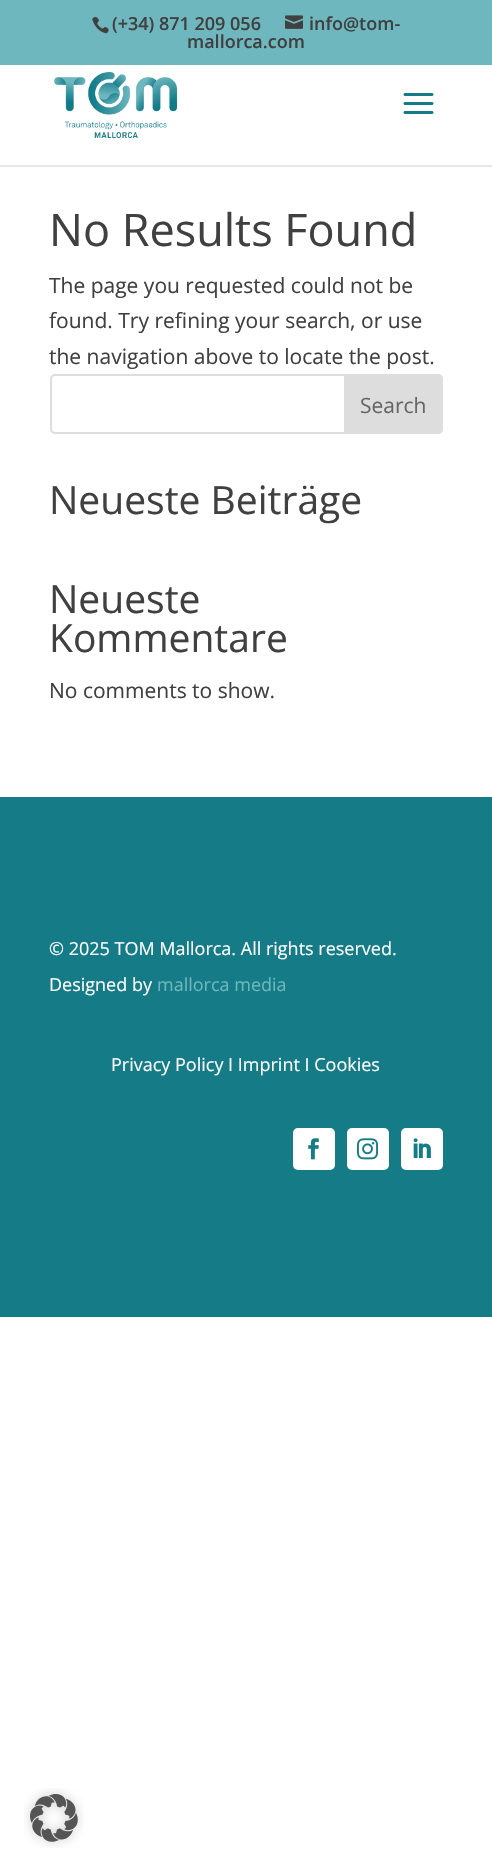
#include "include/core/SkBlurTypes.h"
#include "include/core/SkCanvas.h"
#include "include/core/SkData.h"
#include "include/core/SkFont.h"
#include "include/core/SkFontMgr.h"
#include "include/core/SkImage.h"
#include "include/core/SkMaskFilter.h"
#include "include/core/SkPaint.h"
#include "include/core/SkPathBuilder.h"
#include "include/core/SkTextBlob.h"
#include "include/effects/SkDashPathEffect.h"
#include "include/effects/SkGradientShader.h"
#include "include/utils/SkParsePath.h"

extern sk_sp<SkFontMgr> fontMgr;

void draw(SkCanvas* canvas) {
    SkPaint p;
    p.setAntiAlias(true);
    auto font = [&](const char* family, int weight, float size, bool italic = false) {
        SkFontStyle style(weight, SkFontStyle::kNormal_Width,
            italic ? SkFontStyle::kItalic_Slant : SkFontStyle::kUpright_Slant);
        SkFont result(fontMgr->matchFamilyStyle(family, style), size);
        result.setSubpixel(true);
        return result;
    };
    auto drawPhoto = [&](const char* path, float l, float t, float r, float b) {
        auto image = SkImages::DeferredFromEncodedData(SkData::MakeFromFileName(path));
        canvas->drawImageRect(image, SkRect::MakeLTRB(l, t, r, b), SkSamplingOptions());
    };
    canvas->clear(0xFFFFFFFF);
    p.setColor(0xFF6EB7BE);
    canvas->drawRect(SkRect::MakeLTRB(0, 0, 492, 65), p);
    drawPhoto("media/1.png", 92, 16, 109, 34);
    auto font1 = font("Open Sans", 600, 18);
    p.setColor(0xFF404040);
    canvas->drawString("(+34) 871 209 056", 112, 30, font1, p);
    drawPhoto("media/2.png", 285, 15, 303, 29);
    canvas->drawString("info@tom-", 309, 30, font1, p);
    canvas->drawString("mallorca.com", 187, 48, font1, p);
    p.setColor(0xFFE6E6E6);
    canvas->drawRect(SkRect::MakeLTRB(0, 165, 492, 167), p);
    drawPhoto("media/3.png", 54, 72, 177, 138);
    drawPhoto("media/4.png", 403, 93, 434, 114);
    auto font2 = font("Open Sans", 400, 45);
    p.setColor(0xFF404040);
    canvas->drawString("No Results Found", 49, 246, font2, p);
    auto font3 = font("Open Sans", 400, 21);
    {
        const struct { const char* s; float x, y; } items[] = {
            {"The page you requested could not be", 49, 293},
            {"found. Try refining your search, or use", 49, 328},
            {"the navigation above to locate the post.", 49, 364},
        };
        for (auto [s, x, y] : items) {
            canvas->drawString(s, x, y, font3, p);
        }
    }
    p.setStyle(SkPaint::kStroke_Style);
    p.setStrokeWidth(2);
    p.setColor(0xFFDDDDDD);
    canvas->drawRoundRect(SkRect::MakeLTRB(51, 375, 442, 433), 4, 4, p);
    p.setStyle(SkPaint::kFill_Style);
    canvas->drawPath(SkPathBuilder().moveTo(345, 375).lineTo(438, 375).cubicTo(440, 375, 442, 377, 442, 379).lineTo(442, 429).cubicTo(442, 431, 440, 433, 438, 433).lineTo(345, 433).close().detach(), p);
    p.setStyle(SkPaint::kStroke_Style);
    canvas->drawPath(SkPathBuilder().moveTo(345, 375).lineTo(438, 375).cubicTo(440, 375, 442, 377, 442, 379).lineTo(442, 429).cubicTo(442, 431, 440, 433, 438, 433).lineTo(345, 433).close().detach(), p);
    p.setStyle(SkPaint::kFill_Style);
    p.setColor(0xFF666666);
    canvas->drawString("Search", 360, 413, font3, p);
    auto font4 = font("Open Sans", 400, 39);
    p.setColor(0xFF404040);
    {
        const struct { const char* s; float x, y; } items[] = {
            {"Neueste Beiträge", 49, 514},
            {"Neueste", 49, 613},
            {"Kommentare", 49, 652},
        };
        for (auto [s, x, y] : items) {
            canvas->drawString(s, x, y, font4, p);
        }
    }
    canvas->drawString("No comments to show.", 49, 698, font3, p);
    p.setColor(0xFF147B87);
    canvas->drawRect(SkRect::MakeLTRB(0, 797, 492, 1317), p);
    auto font5 = font("Open Sans", 400, 18);
    p.setColor(0xFFFFFFFF);
    canvas->drawString("© 2025 TOM Mallorca. All rights reserved.", 49, 955, font5, p);
    canvas->drawString("Designed by", 49, 991, font5, p);
    p.setColor(0xFF6EB7BE);
    canvas->drawString("mallorca media", 157, 991, font5, p);
    p.setColor(0xFFFFFFFF);
    canvas->drawString("Privacy Policy I Imprint I Cookies", 111, 1071, font5, p);
    canvas->drawRoundRect(SkRect::MakeLTRB(293, 1128, 335, 1170), 5, 5, p);
    drawPhoto("media/5.png", 308, 1138, 319, 1160);
    canvas->drawRoundRect(SkRect::MakeLTRB(347, 1128, 389, 1170), 5, 5, p);
    drawPhoto("media/6.png", 357, 1138, 378, 1160);
    canvas->drawRoundRect(SkRect::MakeLTRB(401, 1128, 443, 1170), 5, 5, p);
    drawPhoto("media/7.png", 413, 1138, 431, 1158);
    drawPhoto("media/8.png", 24, 1788, 84, 1848);
}
